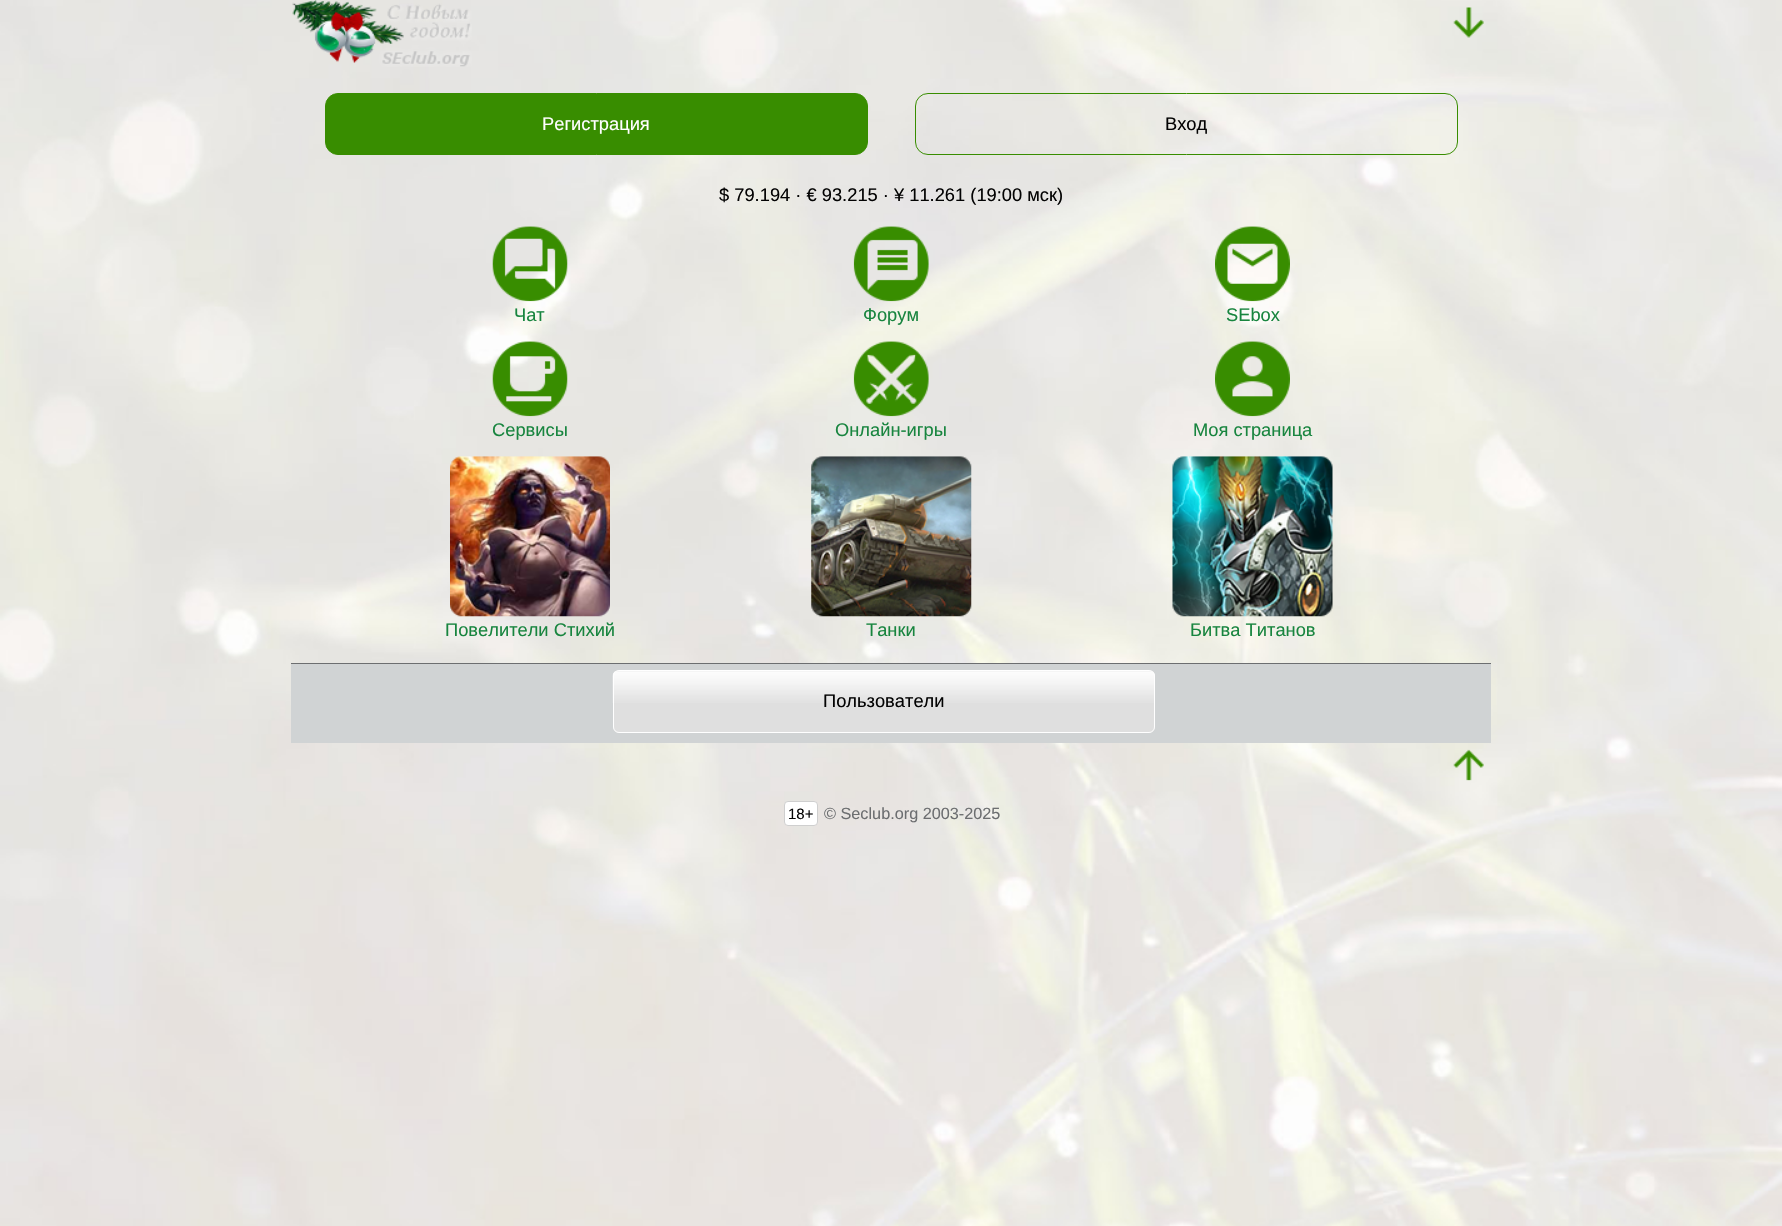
#include "include/core/SkBlurTypes.h"
#include "include/core/SkCanvas.h"
#include "include/core/SkData.h"
#include "include/core/SkFont.h"
#include "include/core/SkFontMgr.h"
#include "include/core/SkImage.h"
#include "include/core/SkMaskFilter.h"
#include "include/core/SkPaint.h"
#include "include/core/SkPathBuilder.h"
#include "include/core/SkTextBlob.h"
#include "include/effects/SkDashPathEffect.h"
#include "include/effects/SkGradientShader.h"
#include "include/utils/SkParsePath.h"

extern sk_sp<SkFontMgr> fontMgr;

void draw(SkCanvas* canvas) {
    SkPaint p;
    p.setAntiAlias(true);
    auto font = [&](const char* family, int weight, float size, bool italic = false) {
        SkFontStyle style(weight, SkFontStyle::kNormal_Width,
            italic ? SkFontStyle::kItalic_Slant : SkFontStyle::kUpright_Slant);
        SkFont result(fontMgr->matchFamilyStyle(family, style), size);
        result.setSubpixel(true);
        return result;
    };
    auto drawPhoto = [&](const char* path, float l, float t, float r, float b) {
        auto image = SkImages::DeferredFromEncodedData(SkData::MakeFromFileName(path));
        canvas->drawImageRect(image, SkRect::MakeLTRB(l, t, r, b), SkSamplingOptions());
    };
    canvas->clear(0xFFFFFFFF);
    drawPhoto("media/1.png", 0, 0, 1782, 1226);
    drawPhoto("media/2.png", 292, 0, 472, 67);
    drawPhoto("media/3.png", 1453, 7, 1484, 38);
    p.setColor(0xFF388D00);
    canvas->drawRoundRect(SkRect::MakeLTRB(325.5f, 93.5f, 867.5f, 154.5f), 12.5f, 12.5f, p);
    p.setStyle(SkPaint::kStroke_Style);
    p.setStrokeWidth(1);
    canvas->drawRoundRect(SkRect::MakeLTRB(325.5f, 93.5f, 867.5f, 154.5f), 12.5f, 12.5f, p);
    auto font1 = font("Liberation Sans", 400, 18.3f);
    p.setStyle(SkPaint::kFill_Style);
    p.setColor(0xFFFFFFFF);
    canvas->drawString("Регистрация", 542, 130, font1, p);
    p.setStyle(SkPaint::kStroke_Style);
    p.setColor(0xFF388D00);
    canvas->drawRoundRect(SkRect::MakeLTRB(915.5f, 93.5f, 1457.5f, 154.5f), 12.5f, 12.5f, p);
    p.setStyle(SkPaint::kFill_Style);
    p.setColor(0xFF030303);
    canvas->drawString("Вход", 1165, 130, font1, p);
    canvas->drawString("$ 79.194 · € 93.215 · ¥ 11.261 (19:00 мск)", 719, 201, font1, p);
    drawPhoto("media/4.png", 492, 226, 568, 302);
    p.setColor(0xFF18853F);
    canvas->drawString("Чат", 514, 321, font1, p);
    drawPhoto("media/5.png", 853, 226, 929, 302);
    canvas->drawString("Форум", 863, 321, font1, p);
    drawPhoto("media/6.png", 1215, 226, 1290, 302);
    canvas->drawString("SEbox", 1226, 321, font1, p);
    drawPhoto("media/7.png", 492, 341, 568, 417);
    canvas->drawString("Сервисы", 492, 436, font1, p);
    drawPhoto("media/8.png", 853, 341, 929, 417);
    canvas->drawString("Онлайн-игры", 835, 436, font1, p);
    drawPhoto("media/9.png", 1215, 341, 1290, 417);
    canvas->drawString("Моя страница", 1193, 436, font1, p);
    drawPhoto("media/10.png", 450, 456, 610, 617);
    canvas->drawString("Повелители Стихий", 445, 636, font1, p);
    drawPhoto("media/11.png", 811, 456, 972, 617);
    canvas->drawString("Танки", 866, 636, font1, p);
    drawPhoto("media/12.png", 1172, 456, 1333, 617);
    canvas->drawString("Битва Титанов", 1190, 636, font1, p);
    p.setColor(0xFFD0D3D4);
    canvas->drawRect(SkRect::MakeLTRB(291, 664, 1491, 743), p);
    p.setColor(0xFF6C6E70);
    canvas->drawRect(SkRect::MakeLTRB(291, 663, 1491, 664), p);
    p.setColor(0xFFDFDFDF);
    canvas->drawRoundRect(SkRect::MakeLTRB(613, 670, 1155, 733), 6, 6, p);
    drawPhoto("media/13.png", 612, 671, 1155, 703);
    p.setStyle(SkPaint::kStroke_Style);
    p.setColor(0xFFFFFFFF);
    canvas->drawRoundRect(SkRect::MakeLTRB(613.5f, 670.5f, 1154.5f, 732.5f), 5.5f, 5.5f, p);
    p.setStyle(SkPaint::kFill_Style);
    p.setColor(0xFF030303);
    canvas->drawString("Пользователи", 823, 707, font1, p);
    drawPhoto("media/14.png", 1453, 749, 1484, 781);
    p.setColor(0xFFFFFFFF);
    canvas->drawRoundRect(SkRect::MakeLTRB(784.5f, 801.5f, 817.5f, 825.5f), 3.5f, 3.5f, p);
    p.setStyle(SkPaint::kStroke_Style);
    p.setColor(0xFFCFCFCF);
    canvas->drawRoundRect(SkRect::MakeLTRB(784.5f, 801.5f, 817.5f, 825.5f), 3.5f, 3.5f, p);
    auto font2 = font("Liberation Sans", 400, 15);
    p.setStyle(SkPaint::kFill_Style);
    p.setColor(0xFF030303);
    canvas->drawString("18+", 788, 819, font2, p);
    auto font3 = font("Liberation Sans", 400, 16.25f);
    p.setColor(0xFF6C6E70);
    canvas->drawString("© Seclub.org 2003-2025", 824, 819, font3, p);
}
